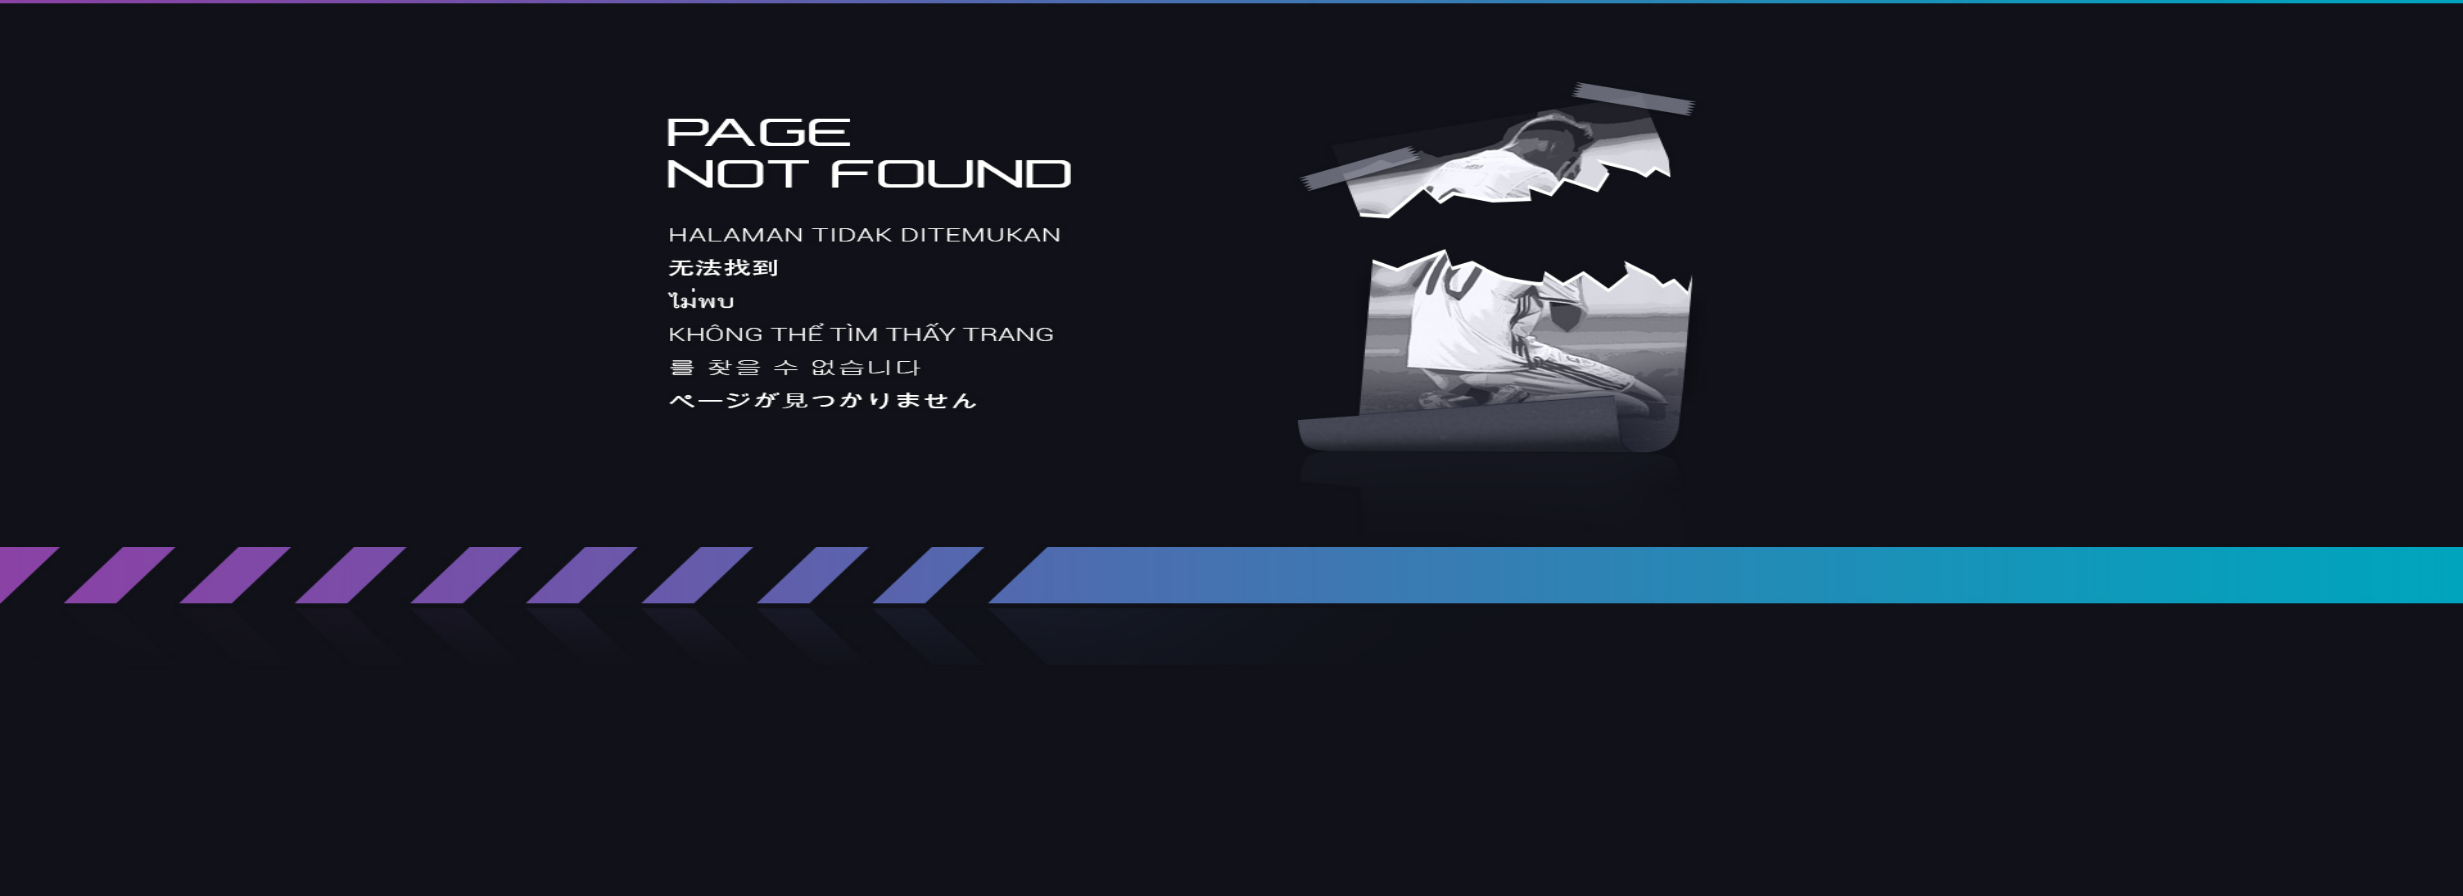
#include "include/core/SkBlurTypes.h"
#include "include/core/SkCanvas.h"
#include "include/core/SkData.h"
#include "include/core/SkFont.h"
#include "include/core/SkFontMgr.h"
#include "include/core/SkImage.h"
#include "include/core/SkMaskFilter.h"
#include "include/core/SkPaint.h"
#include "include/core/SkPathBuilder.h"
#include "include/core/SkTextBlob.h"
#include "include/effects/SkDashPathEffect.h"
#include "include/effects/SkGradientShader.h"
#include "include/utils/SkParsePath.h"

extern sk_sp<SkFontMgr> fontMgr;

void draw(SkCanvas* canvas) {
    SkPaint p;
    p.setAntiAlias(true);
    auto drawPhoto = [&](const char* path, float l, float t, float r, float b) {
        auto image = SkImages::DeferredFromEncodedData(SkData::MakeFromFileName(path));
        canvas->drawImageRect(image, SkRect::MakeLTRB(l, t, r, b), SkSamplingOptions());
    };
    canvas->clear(0xFFFFFFFF);
    drawPhoto("media/1.png", 0, 0, 2463, 896);
}
